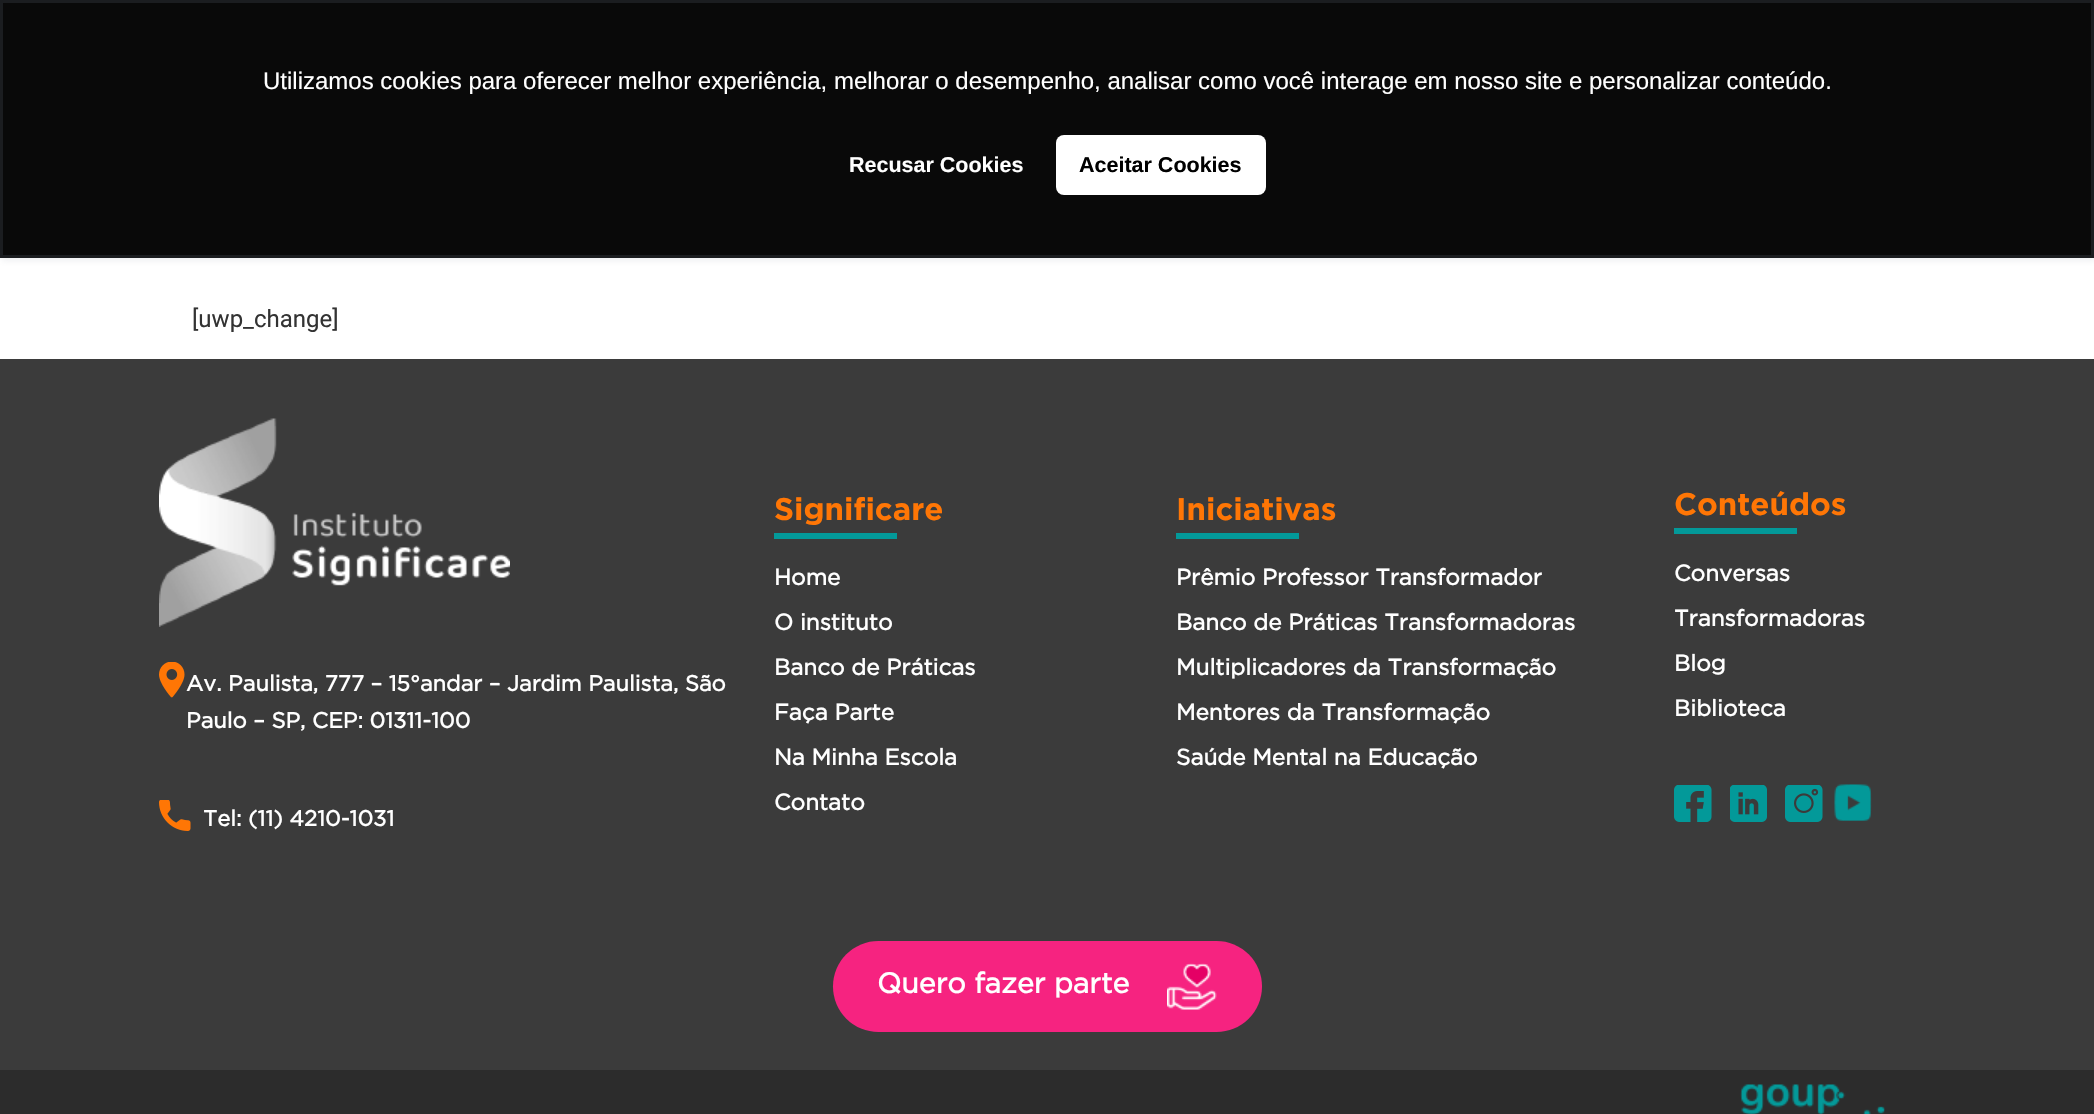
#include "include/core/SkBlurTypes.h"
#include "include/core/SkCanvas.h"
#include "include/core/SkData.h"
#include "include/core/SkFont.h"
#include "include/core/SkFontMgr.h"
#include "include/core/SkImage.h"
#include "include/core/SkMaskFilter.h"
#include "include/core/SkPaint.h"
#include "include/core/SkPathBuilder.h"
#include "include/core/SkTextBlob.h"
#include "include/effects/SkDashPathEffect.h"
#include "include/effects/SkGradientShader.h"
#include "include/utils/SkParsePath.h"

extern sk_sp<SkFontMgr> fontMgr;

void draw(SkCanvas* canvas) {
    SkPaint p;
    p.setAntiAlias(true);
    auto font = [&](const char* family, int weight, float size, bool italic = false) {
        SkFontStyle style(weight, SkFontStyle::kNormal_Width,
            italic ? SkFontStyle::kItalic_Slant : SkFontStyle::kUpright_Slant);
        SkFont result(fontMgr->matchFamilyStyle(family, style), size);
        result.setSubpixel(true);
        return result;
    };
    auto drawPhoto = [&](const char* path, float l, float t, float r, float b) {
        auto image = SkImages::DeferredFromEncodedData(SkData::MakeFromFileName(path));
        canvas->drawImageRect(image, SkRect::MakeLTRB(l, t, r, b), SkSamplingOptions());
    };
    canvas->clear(0xFFFFFFFF);
    p.setColor(0x1A636E7C);
    p.setMaskFilter(SkMaskFilter::MakeBlur(kNormal_SkBlurStyle, 3));
    canvas->drawRect(SkRect::MakeLTRB(2, 3, 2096, 261), p);
    p.setMaskFilter(nullptr);
    p.setColor(0xFF090909);
    canvas->drawRect(SkRect::MakeLTRB(1.5f, 1.5f, 2092.5f, 256.5f), p);
    p.setStyle(SkPaint::kStroke_Style);
    p.setStrokeWidth(3);
    p.setColor(0xFF1B1D20);
    canvas->drawRect(SkRect::MakeLTRB(1.5f, 1.5f, 2092.5f, 256.5f), p);
    auto font1 = font("Liberation Sans", 400, 24);
    p.setStyle(SkPaint::kFill_Style);
    p.setColor(0xFFFFFFFF);
    canvas->drawString("Utilizamos cookies para oferecer melhor experiência, melhorar o desempenho, analisar como você interage em nosso site e personalizar conteúdo.", 263, 89, font1, p);
    auto font2 = font("Liberation Sans", 700, 21.5f);
    canvas->drawString("Recusar Cookies", 849, 172, font2, p);
    canvas->drawRoundRect(SkRect::MakeLTRB(1056, 135, 1266, 195), 8, 8, p);
    p.setColor(0xFF000000);
    canvas->drawString("Aceitar Cookies", 1079, 172, font2, p);
    auto font3 = font("Roboto", 400, 24);
    p.setColor(0xFF333333);
    canvas->drawString("[uwp_change]", 192, 327, font3, p);
    p.setColor(0xFF3B3B3B);
    canvas->drawRect(SkRect::MakeLTRB(0, 359, 2094, 1070), p);
    drawPhoto("media/1.png", 159, 418, 510, 627);
    drawPhoto("media/2.png", 159, 662, 185, 698);
    auto font4 = font("Gotham", 700, 21.9f);
    p.setColor(0xFFFFFFFF);
    canvas->drawString("Av. Paulista, 777 – 15°andar – Jardim Paulista, São", 186, 691, font4, p);
    canvas->drawString("Paulo – SP, CEP: 01311-100", 186, 728, font4, p);
    drawPhoto("media/3.png", 159, 800, 191, 831);
    canvas->drawString("Tel: (11) 4210-1031", 203, 826, font4, p);
    auto font5 = font("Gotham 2", 700, 31.25f);
    p.setColor(0xFFFF7605);
    canvas->drawString("Significare", 774, 520, font5, p);
    p.setColor(0xFF039999);
    canvas->drawRect(SkRect::MakeLTRB(774, 533, 897, 539), p);
    auto font6 = font("Gotham", 700, 22.5f);
    p.setColor(0xFFFFFFFF);
    {
        const struct { const char* s; float x, y; } items[] = {
            {"Home", 774, 585},
            {"O instituto", 774, 630},
            {"Banco de Práticas", 774, 675},
            {"Faça Parte", 774, 720},
            {"Na Minha Escola", 774, 765},
            {"Contato", 774, 810},
        };
        for (auto [s, x, y] : items) {
            canvas->drawString(s, x, y, font6, p);
        }
    }
    p.setColor(0xFFFF7605);
    canvas->drawString("Iniciativas", 1176, 520, font5, p);
    p.setColor(0xFF039999);
    canvas->drawRect(SkRect::MakeLTRB(1176, 533, 1299, 539), p);
    p.setColor(0xFFFFFFFF);
    {
        const struct { const char* s; float x, y; } items[] = {
            {"Prêmio Professor Transformador", 1176, 585},
            {"Banco de Práticas Transformadoras", 1176, 630},
            {"Multiplicadores da Transformação", 1176, 675},
            {"Mentores da Transformação", 1176, 720},
            {"Saúde Mental na Educação", 1176, 765},
        };
        for (auto [s, x, y] : items) {
            canvas->drawString(s, x, y, font6, p);
        }
    }
    p.setColor(0xFFFF7605);
    canvas->drawString("Conteúdos", 1674, 515, font5, p);
    p.setColor(0xFF039999);
    canvas->drawRect(SkRect::MakeLTRB(1674, 528, 1797, 534), p);
    p.setColor(0xFFFFFFFF);
    {
        const struct { const char* s; float x, y; } items[] = {
            {"Conversas", 1674, 581},
            {"Transformadoras", 1674, 626},
            {"Blog", 1674, 671},
            {"Biblioteca", 1674, 716},
        };
        for (auto [s, x, y] : items) {
            canvas->drawString(s, x, y, font6, p);
        }
    }
    drawPhoto("media/4.png", 1674, 785, 1712, 822);
    drawPhoto("media/5.png", 1730, 785, 1767, 822);
    drawPhoto("media/6.png", 1785, 785, 1823, 822);
    drawPhoto("media/7.png", 1834, 784, 1872, 821);
    p.setColor(0xFFF62380);
    canvas->drawRoundRect(SkRect::MakeLTRB(833, 941, 1262, 1032), 45.5f, 45.5f, p);
    auto font7 = font("Gotham", 700, 28.5f);
    p.setColor(0xFFFFFFFF);
    canvas->drawString("Quero fazer parte", 877, 993, font7, p);
    drawPhoto("media/8.png", 1167, 963, 1217, 1010);
    p.setColor(0xFF2C2C2C);
    canvas->drawRect(SkRect::MakeLTRB(0, 1070, 2094, 1114), p);
    drawPhoto("media/9.png", 1740, 1084, 1885, 1114);
}
